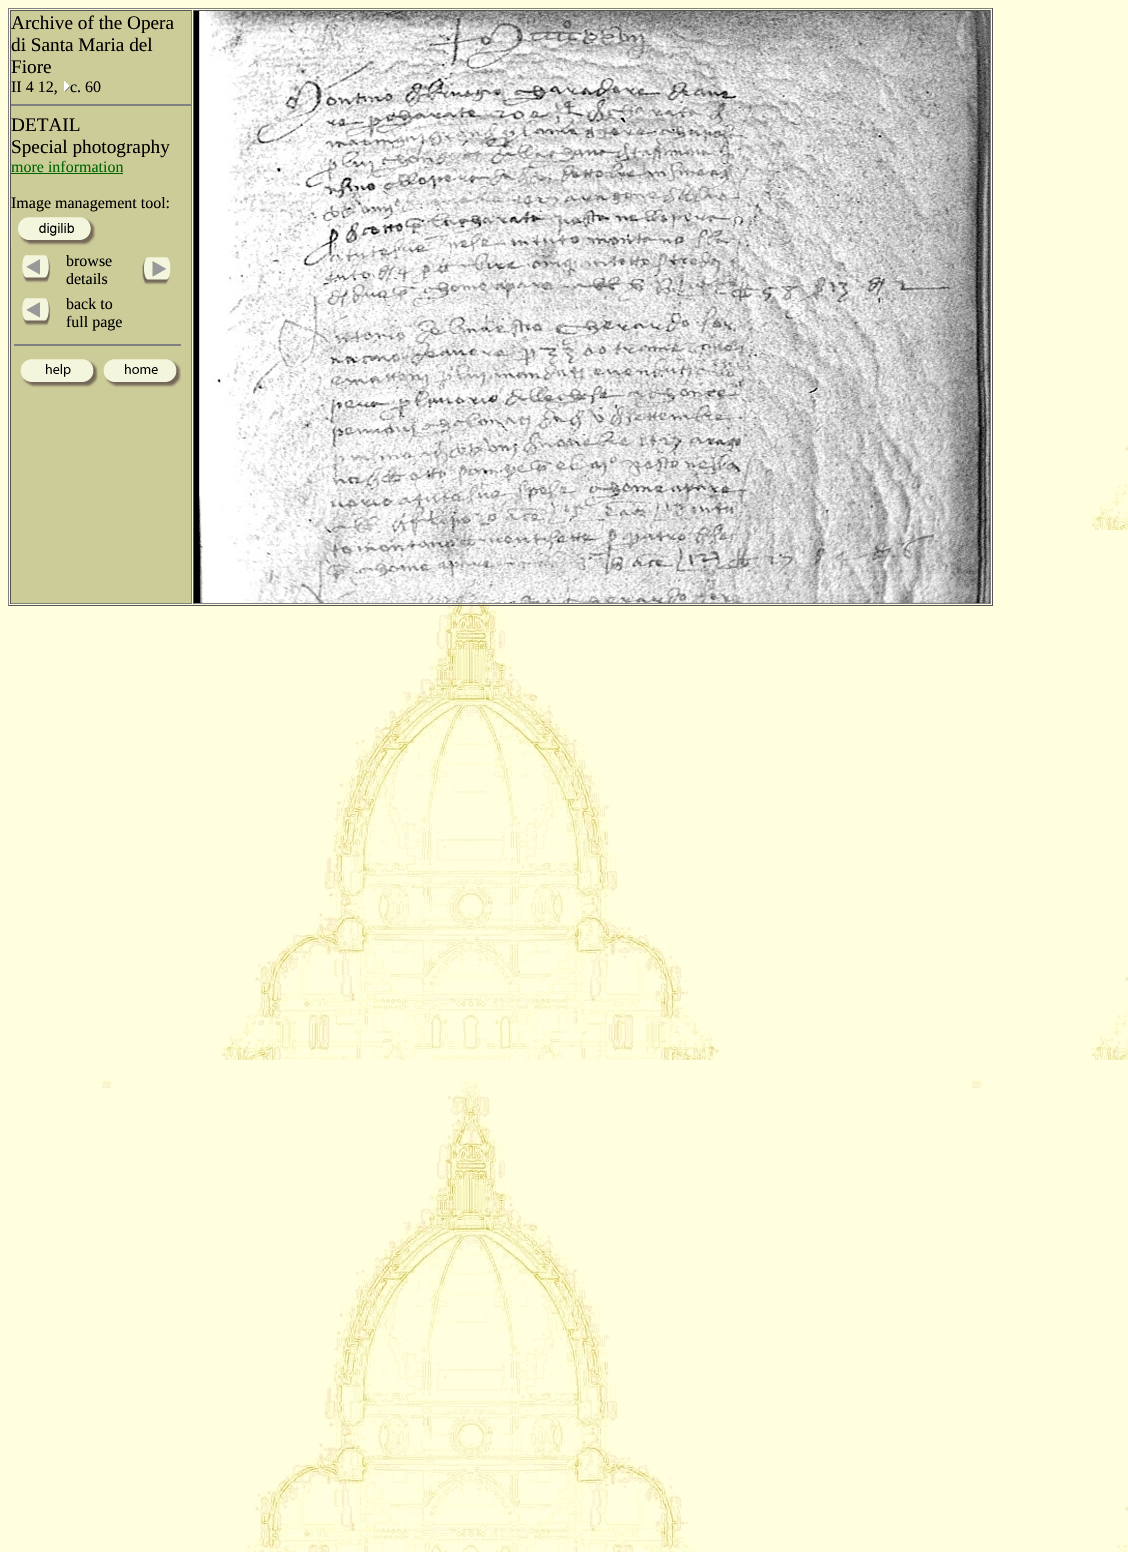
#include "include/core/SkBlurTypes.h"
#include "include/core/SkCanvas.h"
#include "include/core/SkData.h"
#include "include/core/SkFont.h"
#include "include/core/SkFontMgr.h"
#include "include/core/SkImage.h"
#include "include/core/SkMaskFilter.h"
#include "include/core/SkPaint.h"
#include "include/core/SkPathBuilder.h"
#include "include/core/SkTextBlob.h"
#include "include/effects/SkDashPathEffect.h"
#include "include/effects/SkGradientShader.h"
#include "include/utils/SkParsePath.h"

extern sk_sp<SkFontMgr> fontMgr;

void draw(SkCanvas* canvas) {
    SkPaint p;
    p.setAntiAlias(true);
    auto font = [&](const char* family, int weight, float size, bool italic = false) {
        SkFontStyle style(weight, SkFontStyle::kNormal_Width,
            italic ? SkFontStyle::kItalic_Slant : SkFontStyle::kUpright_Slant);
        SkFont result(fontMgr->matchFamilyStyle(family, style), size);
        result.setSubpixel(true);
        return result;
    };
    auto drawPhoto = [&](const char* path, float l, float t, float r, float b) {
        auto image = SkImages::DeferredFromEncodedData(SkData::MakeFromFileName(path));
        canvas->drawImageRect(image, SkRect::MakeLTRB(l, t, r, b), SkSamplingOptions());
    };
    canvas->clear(0xFFFFFFFF);
    drawPhoto("media/1.png", 0, 0, 1128, 1552);
    {
        const struct { float l, t, r, b; SkColor color; } items[] = {
            {8, 8, 993, 9, 0xFF808080},
            {992, 8, 993, 606, 0xFF555555},
            {8, 605, 993, 606, 0xFF555555},
            {8, 8, 9, 606, 0xFF808080},
            {11, 11, 191, 603, 0xFFCCCC99},
            {10, 10, 192, 11, 0xFF555555},
            {191, 10, 192, 604, 0xFF808080},
            {10, 603, 192, 604, 0xFF808080},
            {10, 10, 11, 604, 0xFF555555},
        };
        for (auto [l, t, r, b, color] : items) {
            p.setColor(color);
            canvas->drawRect(SkRect::MakeLTRB(l, t, r, b), p);
        }
    }
    auto font1 = font("Liberation Serif", 400, 19.25f);
    p.setColor(0xFF000000);
    {
        const struct { const char* s; float x, y; } items[] = {
            {"Archive of the Opera", 11, 29},
            {"di Santa Maria del", 11, 51},
            {"Fiore", 11, 73},
        };
        for (auto [s, x, y] : items) {
            canvas->drawString(s, x, y, font1, p);
        }
    }
    auto font2 = font("Liberation Serif", 400, 16);
    canvas->drawString("II 4 12,", 11, 92, font2, p);
    drawPhoto("media/2.png", 64, 81, 70, 92);
    canvas->drawString("c. 60", 70, 92, font2, p);
    p.setColor(0xFF808080);
    canvas->drawRect(SkRect::MakeLTRB(11, 104, 191, 106), p);
    p.setColor(0xFF000000);
    canvas->drawString("DETAIL", 11, 131, font1, p);
    canvas->drawString("Special photography", 11, 153, font1, p);
    p.setColor(0xFF006600);
    canvas->drawString("more information", 11, 172, font2, p);
    canvas->drawRect(SkRect::MakeLTRB(11, 173, 123, 174), p);
    p.setColor(0xFF000000);
    canvas->drawString("Image management tool:", 11, 208, font2, p);
    drawPhoto("media/3.png", 11, 212, 96, 247);
    drawPhoto("media/4.png", 22, 255, 51, 283);
    canvas->drawString("browse", 66, 266, font2, p);
    canvas->drawString("details", 66, 284, font2, p);
    drawPhoto("media/5.png", 142, 257, 171, 285);
    drawPhoto("media/4.png", 22, 298, 51, 326);
    canvas->drawString("back to", 66, 309, font2, p);
    canvas->drawString("full page", 66, 327, font2, p);
    p.setColor(0xFF808080);
    canvas->drawRect(SkRect::MakeLTRB(14, 344, 181, 346), p);
    drawPhoto("media/6.png", 20, 359, 98, 388);
    drawPhoto("media/7.png", 103, 359, 181, 388);
    {
        const struct { float l, t, r, b; SkColor color; } items[] = {
            {193, 10, 991, 11, 0xFF555555},
            {990, 10, 991, 604, 0xFF808080},
            {193, 603, 991, 604, 0xFF808080},
            {193, 10, 194, 604, 0xFF555555},
        };
        for (auto [l, t, r, b, color] : items) {
            p.setColor(color);
            canvas->drawRect(SkRect::MakeLTRB(l, t, r, b), p);
        }
    }
    drawPhoto("media/8.png", 194, 11, 990, 603);
}
